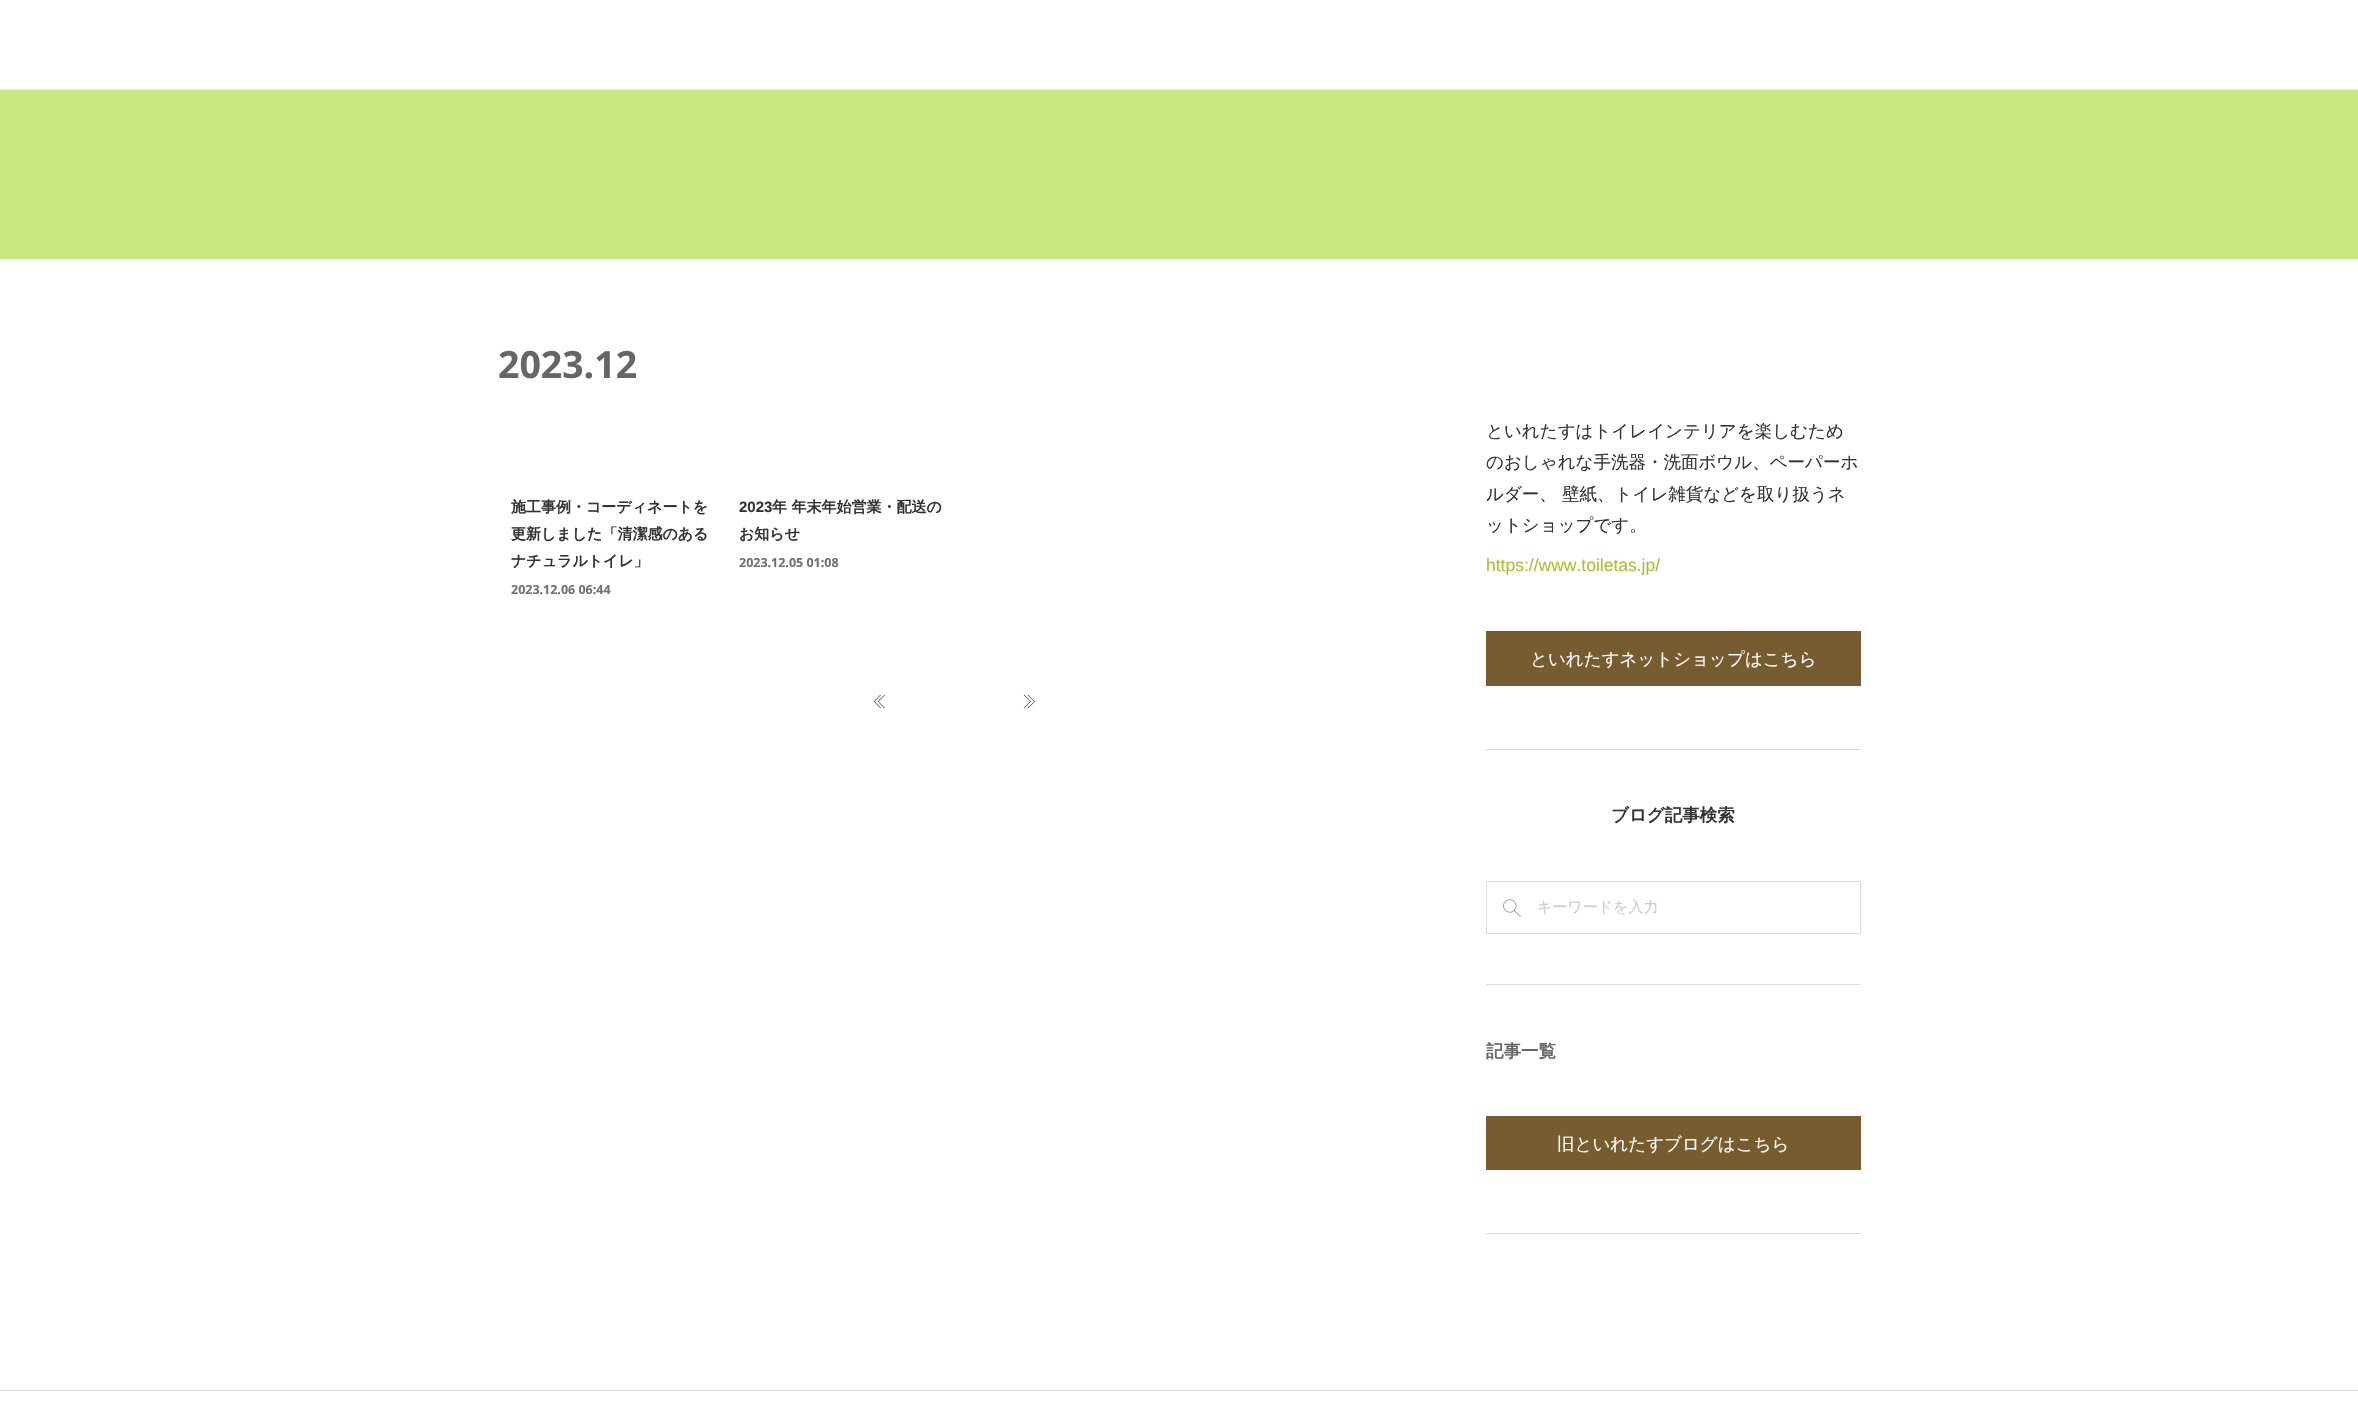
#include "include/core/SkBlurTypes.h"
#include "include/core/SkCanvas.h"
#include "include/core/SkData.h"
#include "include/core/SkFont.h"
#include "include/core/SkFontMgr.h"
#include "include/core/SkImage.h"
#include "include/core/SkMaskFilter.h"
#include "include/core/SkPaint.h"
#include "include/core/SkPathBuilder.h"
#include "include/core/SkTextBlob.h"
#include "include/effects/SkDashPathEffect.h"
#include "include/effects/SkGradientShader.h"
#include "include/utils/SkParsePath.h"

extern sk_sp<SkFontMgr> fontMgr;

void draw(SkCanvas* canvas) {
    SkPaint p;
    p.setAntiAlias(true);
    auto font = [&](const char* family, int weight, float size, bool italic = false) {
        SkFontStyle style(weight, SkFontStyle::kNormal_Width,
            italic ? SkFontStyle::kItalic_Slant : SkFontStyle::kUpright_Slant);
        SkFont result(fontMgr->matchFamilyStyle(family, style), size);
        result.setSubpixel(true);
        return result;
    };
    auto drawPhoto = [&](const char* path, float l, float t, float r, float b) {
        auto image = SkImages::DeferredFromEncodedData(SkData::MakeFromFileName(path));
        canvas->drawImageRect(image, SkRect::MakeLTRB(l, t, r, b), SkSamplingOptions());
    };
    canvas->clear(0xFFFFFFFF);
    p.setColor(0xFFEEEEEE);
    canvas->drawRect(SkRect::MakeLTRB(0, 89, 2358, 90), p);
    p.setColor(0xFFCCE981);
    canvas->drawRect(SkRect::MakeLTRB(0, 90, 2358, 259), p);
    auto font1 = font("Open Sans", 700, 37.5f);
    p.setColor(0xFF666666);
    canvas->drawString("2023.12", 498, 378, font1, p);
    auto font2 = font("WenQuanYi Zen Hei", 700, 15);
    p.setColor(0xFF333333);
    {
        const struct { const char* s; float x, y; } items[] = {
            {"施工事例・コーディネートを", 511, 512},
            {"更新しました「清潔感のある", 511, 539},
            {"ナチュラルトイレ」", 511, 566},
        };
        for (auto [s, x, y] : items) {
            canvas->drawString(s, x, y, font2, p);
        }
    }
    auto font3 = font("Open Sans", 700, 12.5f);
    p.setColor(0xFF707070);
    canvas->drawString("2023.12.06 06:44", 511, 594, font3, p);
    auto font4 = font("Liberation Sans", 700, 15);
    p.setColor(0xFF333333);
    canvas->drawString("2023", 739, 512, font4, p);
    canvas->drawString("年 年末年始営業・配送の", 772, 512, font2, p);
    canvas->drawString("お知らせ", 739, 539, font2, p);
    p.setColor(0xFF707070);
    canvas->drawString("2023.12.05 01:08", 739, 567, font3, p);
    drawPhoto("media/1.png", 873, 694, 885, 709);
    drawPhoto("media/2.png", 1023, 694, 1035, 709);
    auto font5 = font("WenQuanYi Zen Hei", 500, 17.5f);
    p.setColor(0xFF333333);
    {
        const struct { const char* s; float x, y; } items[] = {
            {"といれたすはトイレインテリアを楽しむため", 1486, 437},
            {"のおしゃれな手洗器・洗面ボウル、ペーパーホ", 1486, 468},
            {"ルダー、 壁紙、トイレ雑貨などを取り扱うネ", 1486, 500},
            {"ットショップです。", 1486, 531},
        };
        for (auto [s, x, y] : items) {
            canvas->drawString(s, x, y, font5, p);
        }
    }
    auto font6 = font("Liberation Sans", 400, 17.5f);
    p.setColor(0xFFA9BE30);
    canvas->drawString("https://www.toiletas.jp/", 1486, 571, font6, p);
    p.setColor(0xFF765C2F);
    canvas->drawRect(SkRect::MakeLTRB(1486, 631, 1861, 686), p);
    p.setColor(0xFFFFFFFF);
    canvas->drawString("といれたすネットショップはこちら", 1530, 665, font5, p);
    p.setColor(0xFFDDDDDD);
    canvas->drawRect(SkRect::MakeLTRB(1486, 749, 1861, 750), p);
    auto font7 = font("WenQuanYi Zen Hei", 700, 17.5f);
    p.setColor(0xFF333333);
    canvas->drawString("ブログ記事検索", 1611, 821, font7, p);
    p.setStyle(SkPaint::kStroke_Style);
    p.setStrokeWidth(1);
    p.setColor(0xFFDDDDDD);
    canvas->drawRect(SkRect::MakeLTRB(1486.5f, 881.5f, 1860.5f, 933.5f), p);
    drawPhoto("media/3.png", 1503, 899, 1521, 917);
    auto font8 = font("WenQuanYi Zen Hei", 500, 15);
    p.setStyle(SkPaint::kFill_Style);
    p.setColor(0xFFCCCCCC);
    canvas->drawString("キーワードを入力", 1537, 912, font8, p);
    p.setColor(0xFFDDDDDD);
    canvas->drawRect(SkRect::MakeLTRB(1486, 984, 1861, 985), p);
    p.setColor(0xFF666666);
    canvas->drawString("記事一覧", 1486, 1057, font7, p);
    p.setColor(0xFF765C2F);
    canvas->drawRect(SkRect::MakeLTRB(1486, 1116, 1861, 1170), p);
    p.setColor(0xFFFFFFFF);
    canvas->drawString("旧といれたすブログはこちら", 1557, 1150, font5, p);
    p.setColor(0xFFDDDDDD);
    canvas->drawRect(SkRect::MakeLTRB(1486, 1233, 1861, 1234), p);
    canvas->drawRect(SkRect::MakeLTRB(0, 1390, 2358, 1391), p);
}
